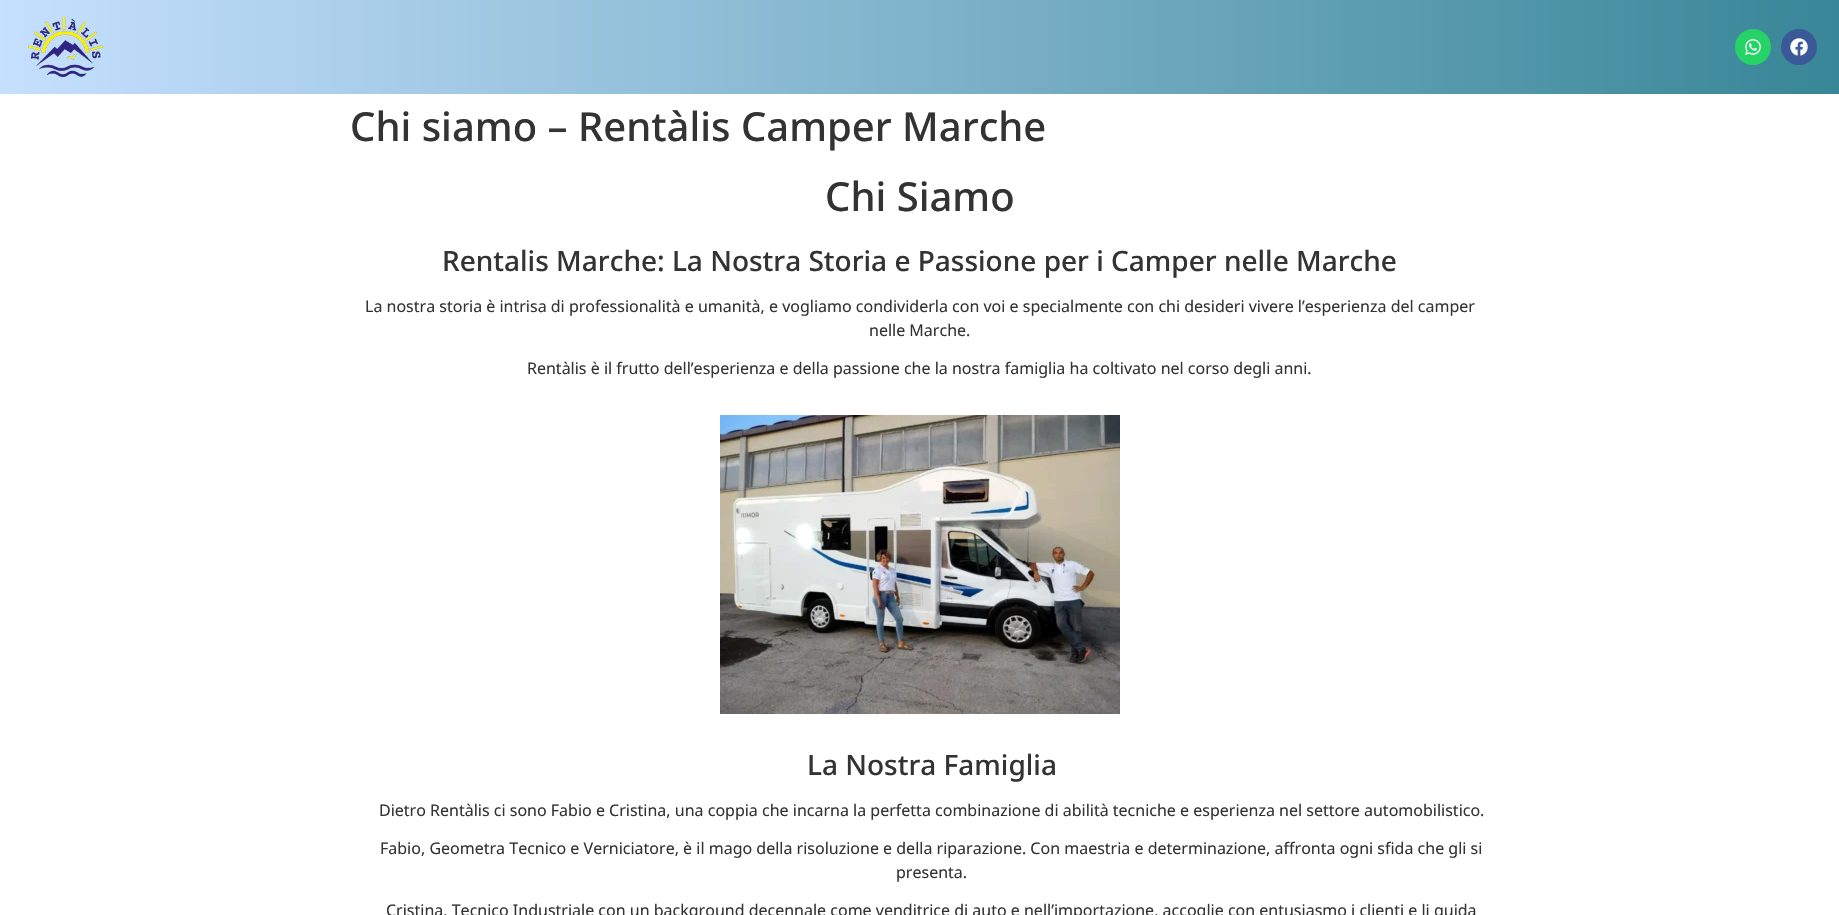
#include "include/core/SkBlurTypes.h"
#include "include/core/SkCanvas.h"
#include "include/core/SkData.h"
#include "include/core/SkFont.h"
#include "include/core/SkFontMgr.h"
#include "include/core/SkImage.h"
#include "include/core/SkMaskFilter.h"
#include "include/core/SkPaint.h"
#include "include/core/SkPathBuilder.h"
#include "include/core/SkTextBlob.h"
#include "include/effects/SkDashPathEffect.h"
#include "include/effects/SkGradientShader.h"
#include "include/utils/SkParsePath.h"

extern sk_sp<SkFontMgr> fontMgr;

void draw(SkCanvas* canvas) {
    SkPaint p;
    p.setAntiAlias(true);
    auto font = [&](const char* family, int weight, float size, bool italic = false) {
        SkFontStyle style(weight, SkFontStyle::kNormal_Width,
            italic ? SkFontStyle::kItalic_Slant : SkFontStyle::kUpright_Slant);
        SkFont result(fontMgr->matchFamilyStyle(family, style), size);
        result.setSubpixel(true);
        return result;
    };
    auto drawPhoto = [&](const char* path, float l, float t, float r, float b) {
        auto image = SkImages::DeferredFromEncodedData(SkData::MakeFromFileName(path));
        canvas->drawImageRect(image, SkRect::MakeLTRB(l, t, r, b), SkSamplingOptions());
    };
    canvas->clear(0xFFFFFFFF);
    {
        const SkColor colors[] = {0xFFC6E0FF, 0xFF388697};
        const float stops[] = {0, 1};
        const SkPoint ends[] = {{0, 47}, {1839, 47}};
        p.setShader(SkGradientShader::MakeLinear(ends, colors, stops, 2, SkTileMode::kClamp));
        p.setAlpha(255);
    }
    canvas->drawRect(SkRect::MakeLTRB(0, 0, 1839, 94), p);
    drawPhoto("media/1.png", 28, 17, 103, 77);
    p.setShader(nullptr);
    p.setColor(0xFF25D366);
    canvas->drawCircle(1753, 47, 18, p);
    drawPhoto("media/2.png", 1745, 39, 1761, 55);
    p.setColor(0xFF3B5998);
    canvas->drawCircle(1799, 47, 18, p);
    drawPhoto("media/3.png", 1790, 38, 1808, 56);
    auto font1 = font("Noto Sans", 500, 40);
    p.setColor(0xFF333333);
    canvas->drawString("Chi siamo – Rentàlis Camper Marche", 350, 141, font1, p);
    canvas->drawString("Chi Siamo", 825, 211, font1, p);
    auto font2 = font("Noto Sans", 500, 28);
    canvas->drawString("Rentalis Marche: La Nostra Storia e Passione per i Camper nelle Marche", 442, 271, font2, p);
    auto font3 = font("Noto Sans", 400, 16);
    {
        const struct { const char* s; float x, y; } items[] = {
            {"La nostra storia è intrisa di professionalità e umanità, e vogliamo condividerla con voi e specialmente con chi desideri vivere l’esperienza del camper", 365, 312},
            {"nelle Marche.", 869, 336},
            {"Rentàlis è il frutto dell’esperienza e della passione che la nostra famiglia ha coltivato nel corso degli anni.", 527, 374},
        };
        for (auto [s, x, y] : items) {
            canvas->drawString(s, x, y, font3, p);
        }
    }
    drawPhoto("media/4.png", 720, 415, 1120, 714);
    canvas->drawString("La Nostra Famiglia", 807, 775, font2, p);
    {
        const struct { const char* s; float x, y; } items[] = {
            {"Dietro Rentàlis ci sono Fabio e Cristina, una coppia che incarna la perfetta combinazione di abilità tecniche e esperienza nel settore automobilistico.", 379, 816},
            {"Fabio, Geometra Tecnico e Verniciatore, è il mago della risoluzione e della riparazione. Con maestria e determinazione, affronta ogni sfida che gli si", 380, 854},
            {"presenta.", 896, 878},
            {"Cristina, Tecnico Industriale con un background decennale come venditrice di auto e nell’importazione, accoglie con entusiasmo i clienti e li guida", 386, 916},
        };
        for (auto [s, x, y] : items) {
            canvas->drawString(s, x, y, font3, p);
        }
    }
}
